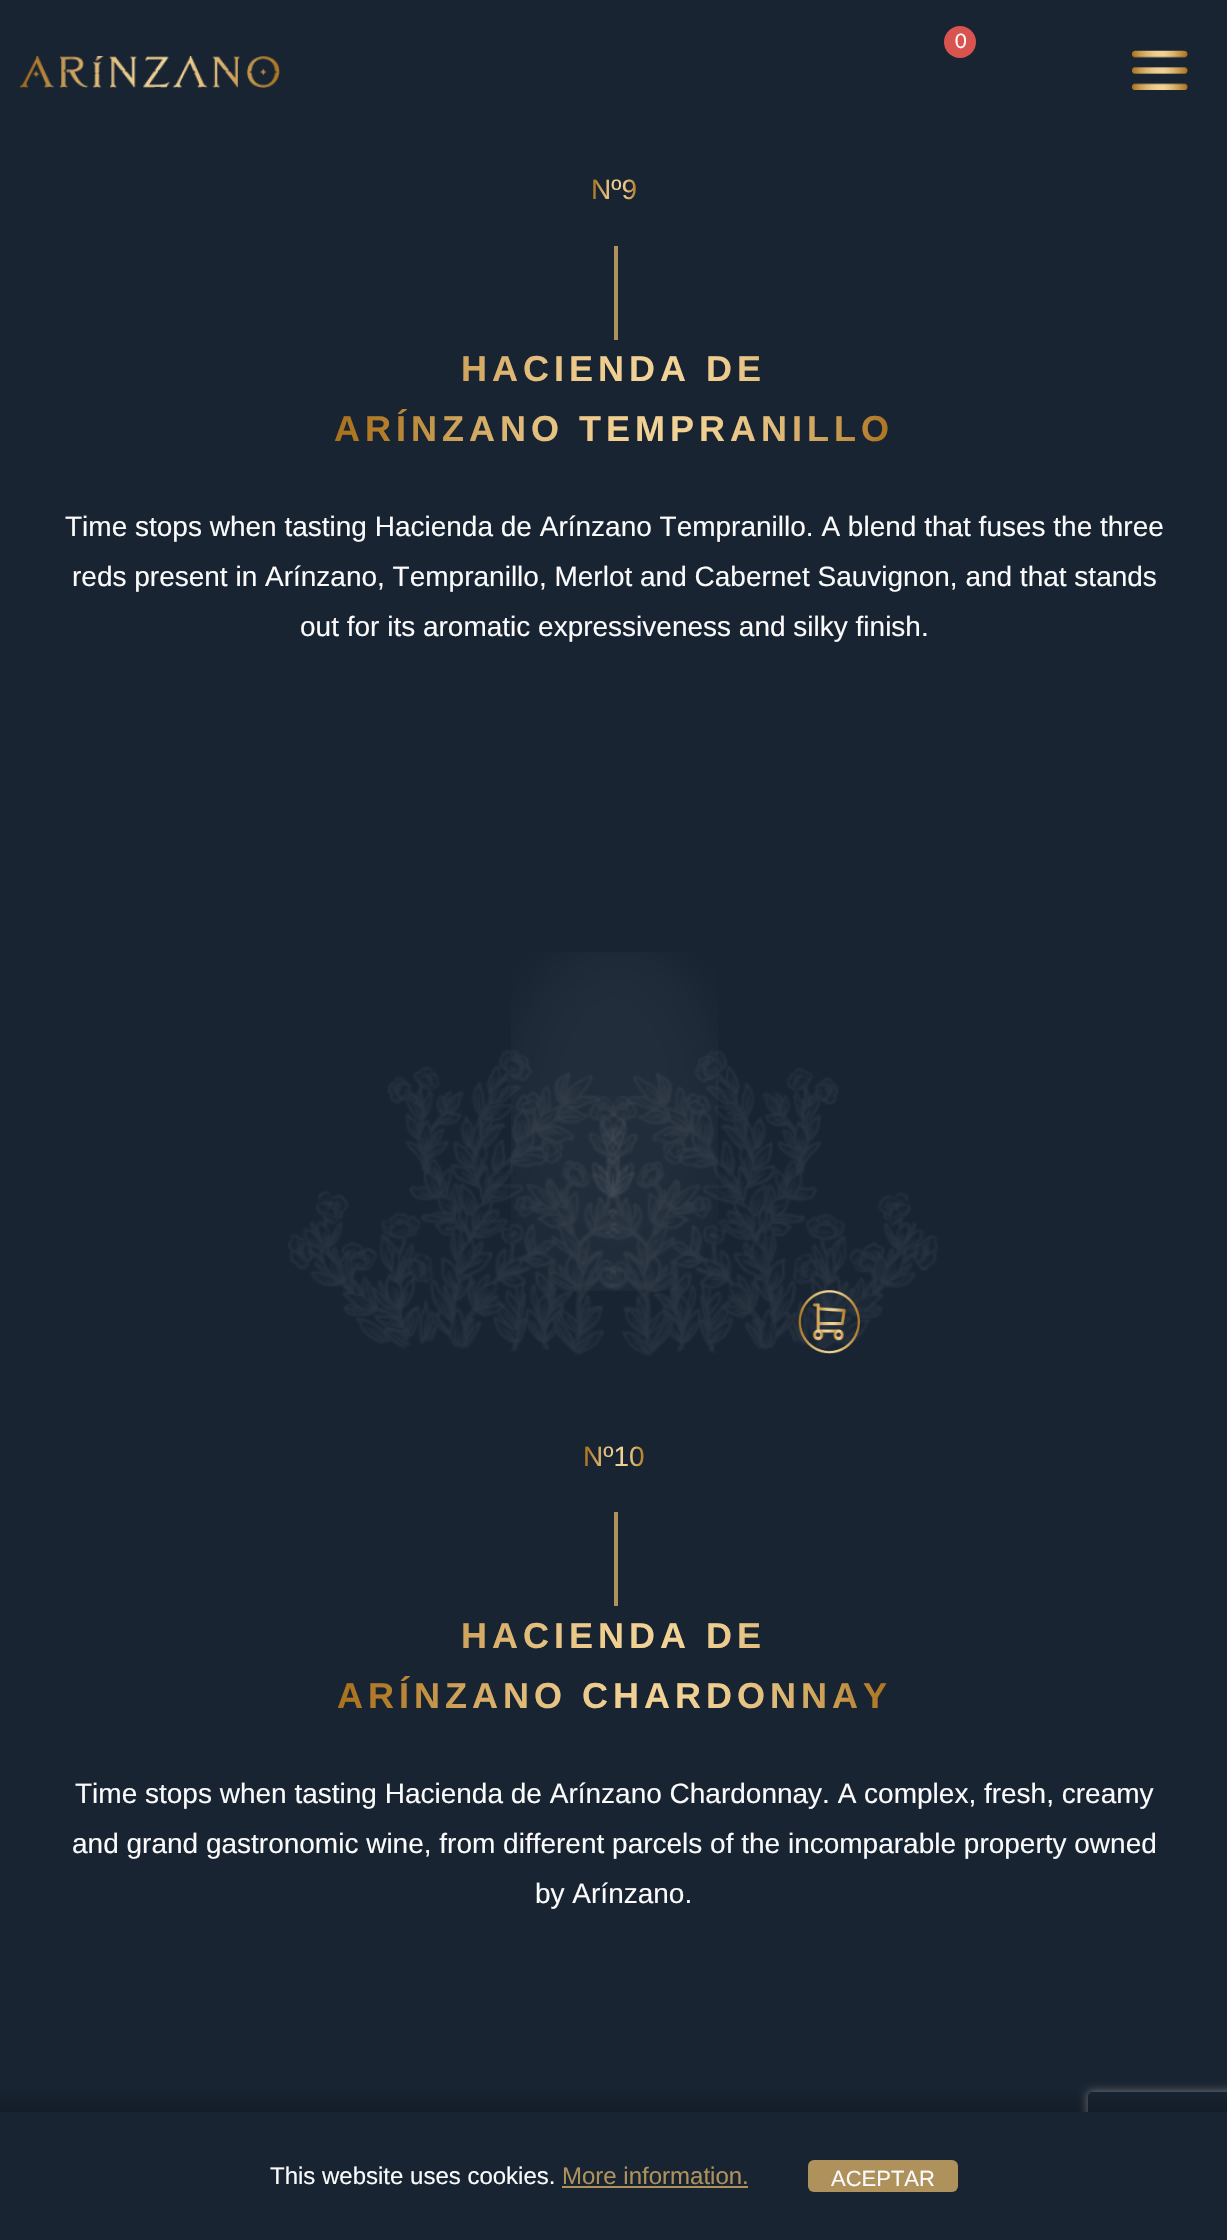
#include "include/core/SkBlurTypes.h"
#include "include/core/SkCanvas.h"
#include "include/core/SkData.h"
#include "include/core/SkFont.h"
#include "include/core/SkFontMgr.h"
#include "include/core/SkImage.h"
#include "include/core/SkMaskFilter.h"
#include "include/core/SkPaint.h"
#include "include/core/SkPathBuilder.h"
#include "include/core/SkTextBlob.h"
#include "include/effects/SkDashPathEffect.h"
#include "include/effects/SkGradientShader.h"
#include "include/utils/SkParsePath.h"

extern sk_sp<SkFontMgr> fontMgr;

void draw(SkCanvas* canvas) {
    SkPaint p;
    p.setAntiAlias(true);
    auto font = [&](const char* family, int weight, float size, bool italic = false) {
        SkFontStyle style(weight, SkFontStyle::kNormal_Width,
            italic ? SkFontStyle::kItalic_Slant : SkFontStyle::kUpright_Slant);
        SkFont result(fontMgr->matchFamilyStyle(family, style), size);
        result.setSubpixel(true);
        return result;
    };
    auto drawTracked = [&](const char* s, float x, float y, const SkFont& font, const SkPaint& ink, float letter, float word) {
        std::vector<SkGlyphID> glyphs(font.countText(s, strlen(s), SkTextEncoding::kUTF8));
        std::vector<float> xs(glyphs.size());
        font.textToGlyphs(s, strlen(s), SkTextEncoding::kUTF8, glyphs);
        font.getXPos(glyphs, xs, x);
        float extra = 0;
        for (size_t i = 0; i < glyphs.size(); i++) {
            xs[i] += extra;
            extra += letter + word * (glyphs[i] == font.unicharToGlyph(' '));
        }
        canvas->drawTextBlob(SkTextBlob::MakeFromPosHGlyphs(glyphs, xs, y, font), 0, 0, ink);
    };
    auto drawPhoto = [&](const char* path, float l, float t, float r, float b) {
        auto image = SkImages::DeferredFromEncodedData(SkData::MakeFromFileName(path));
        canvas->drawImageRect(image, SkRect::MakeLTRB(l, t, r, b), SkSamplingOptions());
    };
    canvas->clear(0xFF182432);
    p.setColor(0xFFD9534F);
    canvas->drawCircle(960, 42, 16, p);
    auto font1 = font("Lato", 400, 20);
    p.setColor(0xFFFBFBFC);
    canvas->drawString("0", 955, 48, font1, p);
    drawPhoto("media/1.png", 1132, 50, 1188, 90);
    drawPhoto("media/2.png", 20, 56, 280, 88);
    auto font2 = font("Liberation Sans", 400, 28);
    {
        const SkColor colors[] = {0xFFA9711C, 0xFFB47F2E, 0xFFCA9D53, 0xFFDCB470, 0xFFE8C585, 0xFFF0CF91, 0xFFF3D396, 0xFFEDCB8D, 0xFFDEB875, 0xFFC7984D, 0xFFA9711C};
        const float stops[] = {0, 0.1f, 0.2f, 0.3f, 0.4f, 0.5f, 0.6f, 0.7f, 0.8f, 0.9f, 1};
        const SkPoint ends[] = {{591, 209}, {637, 209}};
        p.setShader(SkGradientShader::MakeLinear(ends, colors, stops, 11, SkTileMode::kClamp));
        p.setAlpha(255);
    }
    canvas->drawString("Nº9", 591, 199, font2, p);
    p.setShader(nullptr);
    p.setColor(0xFFAF925B);
    canvas->drawRect(SkRect::MakeLTRB(614, 246, 618, 340), p);
    auto font3 = font("Liberation Sans", 700, 36);
    {
        const SkColor colors[] = {0xFFA9711C, 0xFFB47F2E, 0xFFCA9D53, 0xFFDCB470, 0xFFE8C585, 0xFFF0CF91, 0xFFF3D396, 0xFFEDCB8D, 0xFFDEB875, 0xFFC7984D, 0xFFA9711C};
        const float stops[] = {0, 0.1f, 0.2f, 0.3f, 0.4f, 0.5f, 0.6f, 0.7f, 0.8f, 0.9f, 1};
        const SkPoint ends[] = {{334, 419}, {894, 419}};
        p.setShader(SkGradientShader::MakeLinear(ends, colors, stops, 11, SkTileMode::kClamp));
        p.setAlpha(255);
    }
    drawTracked("HACIENDA DE", 461, 381, font3, p, 5, 0);
    drawTracked("ARÍNZANO TEMPRANILLO", 334, 441, font3, p, 5, 0);
    p.setShader(nullptr);
    p.setColor(0xFFFBFBFC);
    {
        const struct { const char* s; float x, y; } items[] = {
            {"Time stops when tasting Hacienda de Arínzano Tempranillo. A blend that fuses the three", 65, 536},
            {"reds present in Arínzano, Tempranillo, Merlot and Cabernet Sauvignon, and that stands", 72, 586},
            {"out for its aromatic expressiveness and silky finish.", 300, 636},
        };
        for (auto [s, x, y] : items) {
            canvas->drawString(s, x, y, font2, p);
        }
    }
    drawPhoto("media/3.png", 288, 1050, 938, 1356);
    drawPhoto("media/4.png", 511, 952, 718, 1291);
    drawPhoto("media/5.png", 798, 1290, 860, 1354);
    {
        const SkColor colors[] = {0xFFA9711C, 0xFFB47F2E, 0xFFCA9D53, 0xFFDCB470, 0xFFE8C585, 0xFFF0CF91, 0xFFF3D396, 0xFFEDCB8D, 0xFFDEB875, 0xFFC7984D, 0xFFA9711C};
        const float stops[] = {0, 0.1f, 0.2f, 0.3f, 0.4f, 0.5f, 0.6f, 0.7f, 0.8f, 0.9f, 1};
        const SkPoint ends[] = {{583, 1476}, {645, 1476}};
        p.setShader(SkGradientShader::MakeLinear(ends, colors, stops, 11, SkTileMode::kClamp));
        p.setAlpha(255);
    }
    canvas->drawString("Nº10", 583, 1466, font2, p);
    p.setShader(nullptr);
    p.setColor(0xFFAF925B);
    canvas->drawRect(SkRect::MakeLTRB(614, 1512, 618, 1606), p);
    {
        const SkColor colors[] = {0xFFA9711C, 0xFFB47F2E, 0xFFCA9D53, 0xFFDCB470, 0xFFE8C585, 0xFFF0CF91, 0xFFF3D396, 0xFFEDCB8D, 0xFFDEB875, 0xFFC7984D, 0xFFA9711C};
        const float stops[] = {0, 0.1f, 0.2f, 0.3f, 0.4f, 0.5f, 0.6f, 0.7f, 0.8f, 0.9f, 1};
        const SkPoint ends[] = {{337, 1686}, {892, 1686}};
        p.setShader(SkGradientShader::MakeLinear(ends, colors, stops, 11, SkTileMode::kClamp));
        p.setAlpha(255);
    }
    drawTracked("HACIENDA DE", 461, 1648, font3, p, 5, 0);
    drawTracked("ARÍNZANO CHARDONNAY", 337, 1708, font3, p, 5, 0);
    p.setShader(nullptr);
    p.setColor(0xFFFBFBFC);
    {
        const struct { const char* s; float x, y; } items[] = {
            {"Time stops when tasting Hacienda de Arínzano Chardonnay. A complex, fresh, creamy", 75, 1803},
            {"and grand gastronomic wine, from different parcels of the incomparable property owned", 72, 1853},
            {"by Arínzano.", 535, 1903},
        };
        for (auto [s, x, y] : items) {
            canvas->drawString(s, x, y, font2, p);
        }
    }
    canvas->save();
    canvas->clipPath(SkPathBuilder(SkPathFillType::kEvenOdd).moveTo(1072, 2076).lineTo(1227, 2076).lineTo(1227, 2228).lineTo(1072, 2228).close().moveTo(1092, 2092).lineTo(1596, 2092).cubicTo(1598, 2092, 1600, 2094, 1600, 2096).lineTo(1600, 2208).cubicTo(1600, 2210, 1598, 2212, 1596, 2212).lineTo(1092, 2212).cubicTo(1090, 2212, 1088, 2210, 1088, 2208).lineTo(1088, 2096).cubicTo(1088, 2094, 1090, 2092, 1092, 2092).close().detach(), true);
    p.setColor(0xFF808080);
    p.setMaskFilter(SkMaskFilter::MakeBlur(kNormal_SkBlurStyle, 5));
    canvas->drawRoundRect(SkRect::MakeLTRB(1088, 2092, 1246, 2212), 4, 4, p);
    p.setMaskFilter(nullptr);
    canvas->restore();
    p.setColor(0x29000000);
    p.setMaskFilter(SkMaskFilter::MakeBlur(kNormal_SkBlurStyle, 6));
    canvas->drawRect(SkRect::MakeLTRB(-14, 2098, 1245, 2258), p);
    p.setMaskFilter(nullptr);
    p.setColor(0xFF182432);
    canvas->drawRect(SkRect::MakeLTRB(0, 2112, 1227, 2240), p);
    auto font4 = font("Liberation Sans", 400, 24);
    p.setColor(0xFFFBFBFC);
    canvas->drawString("This website uses cookies.", 270, 2184, font4, p);
    p.setColor(0xFFAF925B);
    canvas->drawString("More information.", 562, 2184, font4, p);
    canvas->drawRect(SkRect::MakeLTRB(562, 2186, 748, 2188), p);
    canvas->drawRoundRect(SkRect::MakeLTRB(808, 2160, 958, 2192), 6, 6, p);
    auto font5 = font("Liberation Sans", 400, 22);
    p.setColor(0xFFFBFBFC);
    canvas->drawString("ACEPTAR", 831, 2186, font5, p);
}
